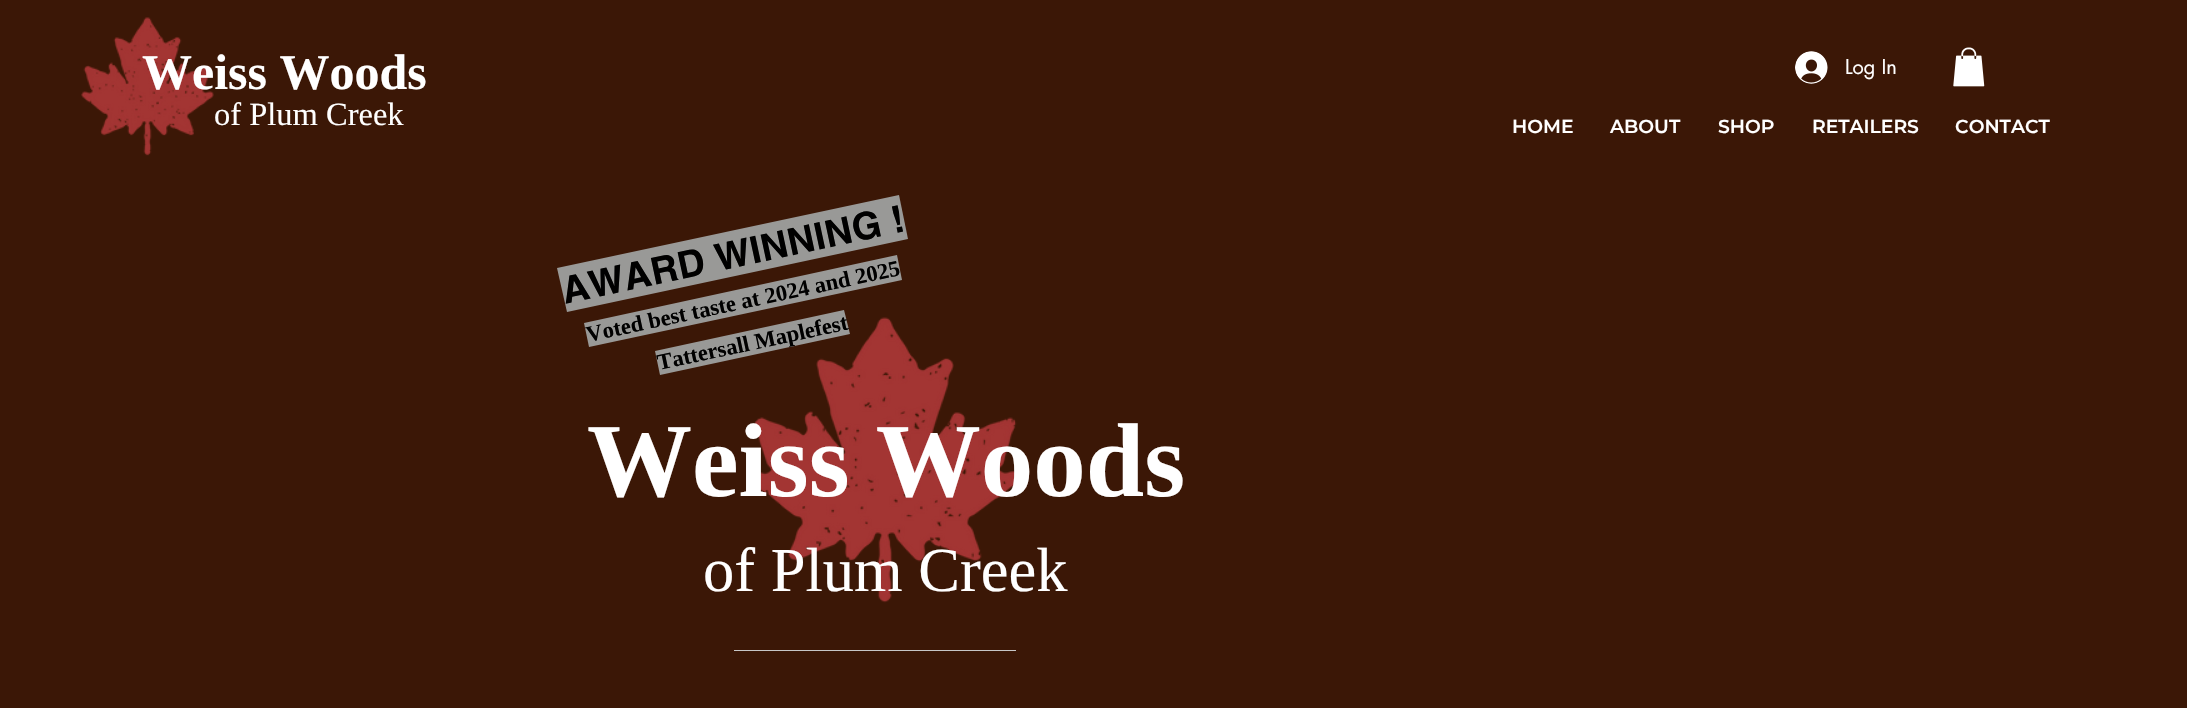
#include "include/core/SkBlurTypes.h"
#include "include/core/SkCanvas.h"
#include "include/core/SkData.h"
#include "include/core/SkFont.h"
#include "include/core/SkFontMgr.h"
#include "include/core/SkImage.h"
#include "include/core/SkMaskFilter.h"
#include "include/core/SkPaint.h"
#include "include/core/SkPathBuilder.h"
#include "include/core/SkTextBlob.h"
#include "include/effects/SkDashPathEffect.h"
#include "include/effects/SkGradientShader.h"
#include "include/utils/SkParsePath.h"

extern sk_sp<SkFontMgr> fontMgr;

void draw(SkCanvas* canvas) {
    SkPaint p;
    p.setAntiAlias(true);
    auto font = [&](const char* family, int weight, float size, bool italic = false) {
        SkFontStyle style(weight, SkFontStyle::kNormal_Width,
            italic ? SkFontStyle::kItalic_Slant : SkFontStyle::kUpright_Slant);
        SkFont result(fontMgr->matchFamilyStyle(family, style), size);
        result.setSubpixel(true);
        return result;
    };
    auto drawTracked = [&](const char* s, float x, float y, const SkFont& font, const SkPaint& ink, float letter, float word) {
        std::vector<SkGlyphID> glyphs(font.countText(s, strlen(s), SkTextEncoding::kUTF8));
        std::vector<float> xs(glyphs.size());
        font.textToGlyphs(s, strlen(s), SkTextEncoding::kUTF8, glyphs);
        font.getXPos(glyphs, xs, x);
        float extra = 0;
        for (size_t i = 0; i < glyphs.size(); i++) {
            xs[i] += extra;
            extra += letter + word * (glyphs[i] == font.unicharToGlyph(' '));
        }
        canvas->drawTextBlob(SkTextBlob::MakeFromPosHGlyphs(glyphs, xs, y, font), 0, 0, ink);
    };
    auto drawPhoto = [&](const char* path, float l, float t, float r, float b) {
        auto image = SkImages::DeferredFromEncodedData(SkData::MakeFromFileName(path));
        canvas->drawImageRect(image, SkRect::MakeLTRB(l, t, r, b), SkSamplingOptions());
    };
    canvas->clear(0xFF3B1706);
    drawPhoto("media/1.png", 81, 17, 214, 156);
    auto font1 = font("Liberation Serif", 700, 50);
    p.setColor(0xFFFFFFFF);
    canvas->drawString("Weiss Woods", 142, 89, font1, p);
    auto font2 = font("Liberation Serif", 400, 32.5f);
    canvas->drawString("of Plum Creek", 214, 125, font2, p);
    drawPhoto("media/2.png", 1795, 51, 1828, 84);
    auto font3 = font("futura", 400, 20);
    canvas->drawString("Log In", 1845, 74, font3, p);
    drawPhoto("media/3.png", 1953, 47, 1985, 87);
    auto font4 = font("Montserrat", 600, 18.75f);
    {
        const struct { const char* s; float x, y; } items[] = {
            {"HOME", 1512, 133},
            {"ABOUT", 1610, 133},
            {"SHOP", 1718, 133},
            {"RETAILERS", 1812, 133},
            {"CONTACT", 1955, 133},
        };
        for (auto [s, x, y] : items) {
            canvas->drawString(s, x, y, font4, p);
        }
    }
    p.setColor(0xFF999997);
    canvas->drawPath(SkPathBuilder().moveTo(557, 268).lineTo(899, 195).lineTo(908, 239).lineTo(567, 312).close().detach(), p);
    auto font5 = font("helvetica", 700, 37.5f);
    p.setColor(0xFF000000);
    canvas->save();
    canvas->rotate(-12.1f, 565, 304);
    drawTracked("AWARD WINNING !", 565, 304, font5, p, 0.4f, 0);
    canvas->restore();
    drawPhoto("media/4.png", 748, 317, 1022, 603);
    p.setColor(0xFF999997);
    canvas->drawPath(SkPathBuilder().moveTo(584, 323).lineTo(897, 255).lineTo(902, 280).lineTo(589, 347).close().detach(), p);
    auto font6 = font("Liberation Serif", 700, 22.5f);
    p.setColor(0xFF000000);
    canvas->save();
    canvas->rotate(-12.1f, 588, 342);
    canvas->drawString("Voted best taste at 2024 and 2025", 588, 342, font6, p);
    canvas->restore();
    p.setColor(0xFF999997);
    canvas->drawPath(SkPathBuilder().moveTo(655, 351).lineTo(844, 310).lineTo(850, 334).lineTo(660, 375).close().detach(), p);
    p.setColor(0xFF000000);
    canvas->save();
    canvas->rotate(-12.1f, 659, 370);
    canvas->drawString("Tattersall Maplefest", 659, 370, font6, p);
    canvas->restore();
    auto font7 = font("Liberation Serif", 700, 105);
    p.setColor(0xFFFFFFFF);
    canvas->drawString("Weiss Woods", 587, 496, font7, p);
    auto font8 = font("Liberation Serif", 400, 62.5f);
    canvas->drawString("of Plum Creek", 703, 591, font8, p);
    p.setColor(0xFFC7C7C7);
    canvas->drawRect(SkRect::MakeLTRB(734, 650, 1016, 651), p);
}
